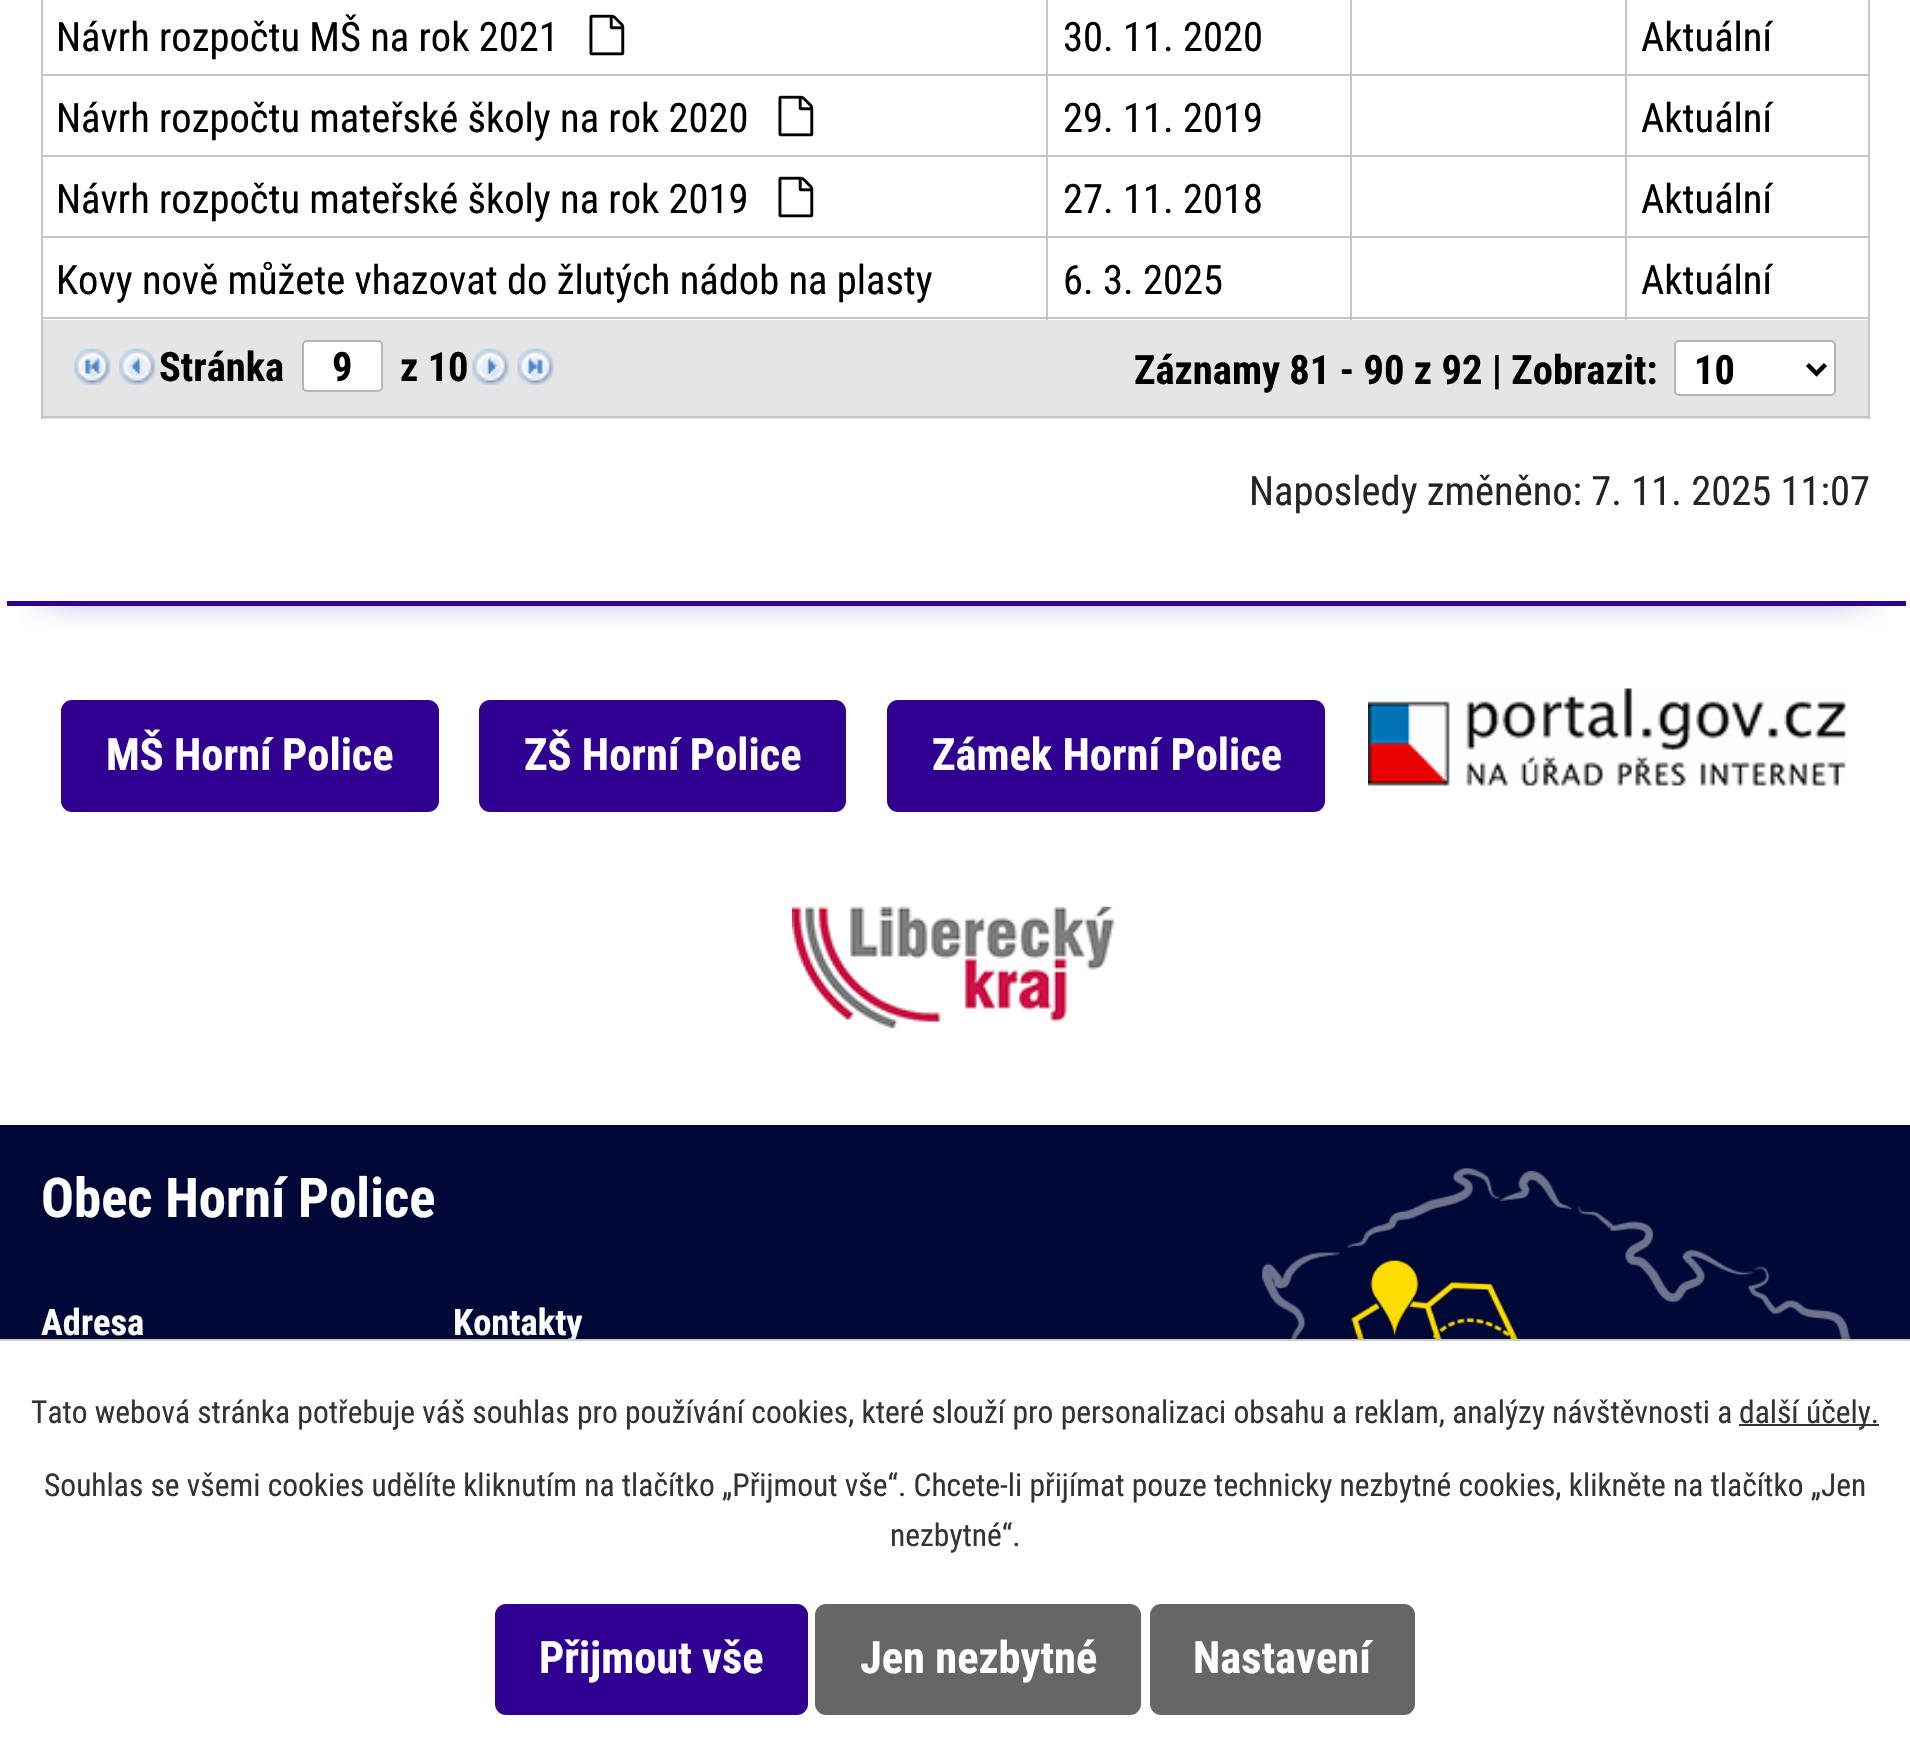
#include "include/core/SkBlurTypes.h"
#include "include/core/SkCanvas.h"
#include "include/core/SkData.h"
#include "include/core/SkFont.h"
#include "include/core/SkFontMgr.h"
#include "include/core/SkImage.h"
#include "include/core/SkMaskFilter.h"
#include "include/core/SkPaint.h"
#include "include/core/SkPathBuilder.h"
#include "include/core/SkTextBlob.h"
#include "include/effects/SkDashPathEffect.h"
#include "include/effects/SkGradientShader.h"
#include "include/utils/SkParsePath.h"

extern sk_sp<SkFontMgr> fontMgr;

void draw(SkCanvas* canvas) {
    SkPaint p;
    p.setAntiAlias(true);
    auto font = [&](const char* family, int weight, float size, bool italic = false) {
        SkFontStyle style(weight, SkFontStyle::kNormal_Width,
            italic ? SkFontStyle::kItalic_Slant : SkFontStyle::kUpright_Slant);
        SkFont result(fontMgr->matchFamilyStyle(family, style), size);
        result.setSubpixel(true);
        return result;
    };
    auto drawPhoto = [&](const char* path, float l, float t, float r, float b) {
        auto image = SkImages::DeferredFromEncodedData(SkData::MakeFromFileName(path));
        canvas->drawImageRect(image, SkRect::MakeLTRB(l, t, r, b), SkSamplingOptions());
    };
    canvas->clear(0xFFFFFFFF);
    canvas->save();
    canvas->clipRect(SkRect::MakeLTRB(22, 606, 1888, 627));
    p.setColor(0xFF300091);
    p.setMaskFilter(SkMaskFilter::MakeBlur(kNormal_SkBlurStyle, 22.5f));
    canvas->drawRect(SkRect::MakeLTRB(45, -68, 1865, 581), p);
    p.setMaskFilter(nullptr);
    canvas->restore();
    canvas->drawRect(SkRect::MakeLTRB(7, 601, 1906, 606), p);
    auto font1 = font("Roboto Condensed", 400, 40.5f);
    p.setColor(0xFF000000);
    canvas->drawString("Návrh rozpočtu MŠ na rok 2021", 56, 51, font1, p);
    drawPhoto("media/1.png", 589, 14, 625, 56);
    {
        const struct { float l, t, r, b; SkColor color; } items[] = {
            {1625, 74, 1870, 76, 0xFFC5C5C5},
            {1625, 155, 1870, 157, 0xFFC5C5C5},
            {1625, 236, 1870, 238, 0xFFC5C5C5},
            {1868, 236, 1870, 320, 0xFFC5C5C5},
            {1625, 317, 1870, 319, 0xFFC5C5C5},
            {1625, 236, 1627, 320, 0xFFC5C5C5},
            {1350, 236, 1627, 238, 0xFFC5C5C5},
            {1625, 155, 1627, 239, 0xFFC5C5C5},
            {1350, 155, 1627, 157, 0xFFC5C5C5},
            {1625, 74, 1627, 158, 0xFFC5C5C5},
            {1350, 74, 1627, 76, 0xFFC5C5C5},
            {1350, 317, 1627, 319, 0xFFC5C5C5},
            {1350, 236, 1352, 320, 0xFFC5C5C5},
            {1046, 236, 1352, 238, 0xFFC5C5C5},
            {1350, 155, 1352, 239, 0xFFC5C5C5},
            {1046, 155, 1352, 157, 0xFFC5C5C5},
            {1350, 74, 1352, 158, 0xFFC5C5C5},
            {1046, 74, 1352, 76, 0xFFC5C5C5},
            {1046, 317, 1352, 319, 0xFFC5C5C5},
            {1046, 236, 1048, 320, 0xFFC5C5C5},
            {41, 236, 1049, 238, 0xFFC5C5C5},
            {1046, 155, 1048, 239, 0xFFC5C5C5},
            {41, 155, 1049, 157, 0xFFC5C5C5},
            {1046, 74, 1048, 158, 0xFFC5C5C5},
            {41, 74, 1049, 76, 0xFFC5C5C5},
            {1046, 0, 1048, 77, 0xFFC5C5C5},
        };
        for (auto [l, t, r, b, color] : items) {
            p.setColor(color);
            canvas->drawRect(SkRect::MakeLTRB(l, t, r, b), p);
        }
    }
    p.setColor(0xFF000000);
    canvas->drawString("30. 11. 2020", 1063, 51, font1, p);
    p.setColor(0xFFC5C5C5);
    canvas->drawRect(SkRect::MakeLTRB(1350, 0, 1352, 77), p);
    canvas->drawRect(SkRect::MakeLTRB(1625, 0, 1627, 77), p);
    p.setColor(0xFF000000);
    canvas->drawString("Aktuální", 1641, 51, font1, p);
    {
        const struct { float l, t, r, b; SkColor color; } items[] = {
            {41, 317, 1049, 319, 0xFFC5C5C5},
            {41, 236, 43, 320, 0xFFC5C5C5},
            {41, 155, 43, 239, 0xFFC5C5C5},
            {41, 0, 43, 158, 0xFFC5C5C5},
        };
        for (auto [l, t, r, b, color] : items) {
            p.setColor(color);
            canvas->drawRect(SkRect::MakeLTRB(l, t, r, b), p);
        }
    }
    p.setColor(0xFF000000);
    canvas->drawString("Návrh rozpočtu mateřské školy na rok 2020", 56, 132, font1, p);
    drawPhoto("media/1.png", 778, 95, 814, 137);
    canvas->drawString("29. 11. 2019", 1063, 132, font1, p);
    p.setColor(0xFFC5C5C5);
    canvas->drawRect(SkRect::MakeLTRB(1868, 155, 1870, 239), p);
    canvas->drawRect(SkRect::MakeLTRB(1868, 0, 1870, 158), p);
    p.setColor(0xFF000000);
    canvas->drawString("Aktuální", 1641, 132, font1, p);
    canvas->drawString("Návrh rozpočtu mateřské školy na rok 2019", 56, 213, font1, p);
    drawPhoto("media/1.png", 778, 176, 814, 218);
    {
        const struct { const char* s; float x, y; } items[] = {
            {"27. 11. 2018", 1063, 213},
            {"Aktuální", 1641, 213},
            {"Kovy nově můžete vhazovat do žlutých nádob na plasty", 56, 294},
            {"6. 3. 2025", 1063, 294},
            {"Aktuální", 1641, 294},
        };
        for (auto [s, x, y] : items) {
            canvas->drawString(s, x, y, font1, p);
        }
    }
    {
        const struct { float l, t, r, b; SkColor color; } items[] = {
            {43, 320, 1868, 419, 0xFFE5E5E5},
            {1868, 317, 1870, 419, 0xFFC5C5C5},
            {41, 416, 1870, 418, 0xFFC5C5C5},
            {41, 317, 43, 419, 0xFFC5C5C5},
        };
        for (auto [l, t, r, b, color] : items) {
            p.setColor(color);
            canvas->drawRect(SkRect::MakeLTRB(l, t, r, b), p);
        }
    }
    drawPhoto("media/2.png", 74, 348, 111, 385);
    drawPhoto("media/3.png", 119, 348, 156, 385);
    auto font2 = font("Roboto Condensed", 700, 40.5f);
    p.setColor(0xFF000000);
    canvas->drawString("Stránka", 159, 381, font2, p);
    p.setColor(0xFFFFFFFF);
    canvas->drawRoundRect(SkRect::MakeLTRB(303, 341, 382, 391), 4, 4, p);
    p.setStyle(SkPaint::kStroke_Style);
    p.setStrokeWidth(2);
    p.setColor(0xFFB5B5B5);
    canvas->drawRoundRect(SkRect::MakeLTRB(303, 341, 382, 391), 4, 4, p);
    p.setStyle(SkPaint::kFill_Style);
    p.setColor(0xFF000000);
    canvas->drawString("9", 332, 381, font2, p);
    canvas->drawString("z 10", 400, 381, font2, p);
    drawPhoto("media/4.png", 472, 348, 509, 385);
    drawPhoto("media/5.png", 517, 348, 554, 385);
    canvas->drawString("Záznamy 81 - 90 z 92 | Zobrazit:", 1134, 384, font2, p);
    p.setColor(0xFFFFFFFF);
    canvas->drawRoundRect(SkRect::MakeLTRB(1675, 341, 1835, 395), 4, 4, p);
    p.setStyle(SkPaint::kStroke_Style);
    p.setColor(0xFFB5B5B5);
    canvas->drawRoundRect(SkRect::MakeLTRB(1675, 341, 1835, 395), 4, 4, p);
    p.setStrokeWidth(4.5f);
    p.setColor(0xFF000000);
    canvas->drawPath(SkPathBuilder().moveTo(1807.5f, 364.5f).lineTo(1816.5f, 373.5f).lineTo(1825.5f, 364.5f).detach(), p);
    p.setStyle(SkPaint::kFill_Style);
    canvas->drawString("10", 1694, 384, font2, p);
    p.setColor(0xFF242424);
    canvas->drawString("Naposledy změněno: 7. 11. 2025 11:07", 1249, 505, font1, p);
    p.setColor(0xFF300091);
    canvas->drawRoundRect(SkRect::MakeLTRB(61, 700, 439, 812), 11, 11, p);
    auto font3 = font("Roboto Condensed", 700, 44.5f);
    p.setColor(0xFFFFFFFF);
    canvas->drawString("MŠ Horní Police", 106, 770, font3, p);
    p.setColor(0xFF300091);
    canvas->drawRoundRect(SkRect::MakeLTRB(479, 700, 846, 812), 11, 11, p);
    p.setColor(0xFFFFFFFF);
    canvas->drawString("ZŠ Horní Police", 524, 770, font3, p);
    p.setColor(0xFF300091);
    canvas->drawRoundRect(SkRect::MakeLTRB(887, 700, 1325, 812), 11, 11, p);
    p.setColor(0xFFFFFFFF);
    canvas->drawString("Zámek Horní Police", 932, 770, font3, p);
    drawPhoto("media/6.png", 1368, 688, 1846, 786);
    drawPhoto("media/7.png", 792, 906, 1115, 1029);
    p.setColor(0xFF000838);
    canvas->drawRect(SkRect::MakeLTRB(0, 1125, 1910, 1339), p);
    auto font4 = font("Roboto Condensed", 700, 54.75f);
    p.setColor(0xFFFFFFFF);
    canvas->drawString("Obec Horní Police", 41, 1217, font4, p);
    auto font5 = font("Roboto Condensed", 700, 36.5f);
    canvas->drawString("Adresa", 41, 1335, font5, p);
    canvas->drawString("Kontakty", 453, 1335, font5, p);
    drawPhoto("media/8.png", 1262, 1168, 1851, 1339);
    p.setColor(0x33000000);
    p.setMaskFilter(SkMaskFilter::MakeBlur(kNormal_SkBlurStyle, 5.5f));
    canvas->drawRect(SkRect::MakeLTRB(0, 1339, 1910, 1757), p);
    p.setMaskFilter(nullptr);
    p.setColor(0xFFFFFFFF);
    canvas->drawRect(SkRect::MakeLTRB(0, 1341, 1910, 1757), p);
    p.setColor(0xFFCCCCCC);
    canvas->drawRect(SkRect::MakeLTRB(0, 1339, 1910, 1341), p);
    auto font6 = font("Roboto Condensed", 400, 31.5f);
    p.setColor(0xFF333333);
    canvas->drawString("Tato webová stránka potřebuje váš souhlas pro používání cookies, které slouží pro personalizaci obsahu a reklam, analýzy návštěvnosti a", 31, 1423, font6, p);
    canvas->drawRect(SkRect::MakeLTRB(1739, 1424, 1879, 1426), p);
    {
        const struct { const char* s; float x, y; } items[] = {
            {"další účely.", 1739, 1423},
            {"Souhlas se všemi cookies udělíte kliknutím na tlačítko „Přijmout vše“. Chcete-li přijímat pouze technicky nezbytné cookies, klikněte na tlačítko „Jen", 44, 1496},
            {"nezbytné“.", 890, 1546},
        };
        for (auto [s, x, y] : items) {
            canvas->drawString(s, x, y, font6, p);
        }
    }
    p.setColor(0xFF300091);
    canvas->drawRoundRect(SkRect::MakeLTRB(495, 1604, 808, 1715), 11, 11, p);
    p.setColor(0xFFFFFFFF);
    canvas->drawString("Přijmout vše", 539, 1673, font3, p);
    p.setColor(0xFF666666);
    canvas->drawRoundRect(SkRect::MakeLTRB(815, 1604, 1141, 1715), 11, 11, p);
    p.setColor(0xFFFFFFFF);
    canvas->drawString("Jen nezbytné", 860, 1673, font3, p);
    p.setColor(0xFF666666);
    canvas->drawRoundRect(SkRect::MakeLTRB(1150, 1604, 1415, 1715), 11, 11, p);
    p.setColor(0xFFFFFFFF);
    canvas->drawString("Nastavení", 1193, 1673, font3, p);
}
